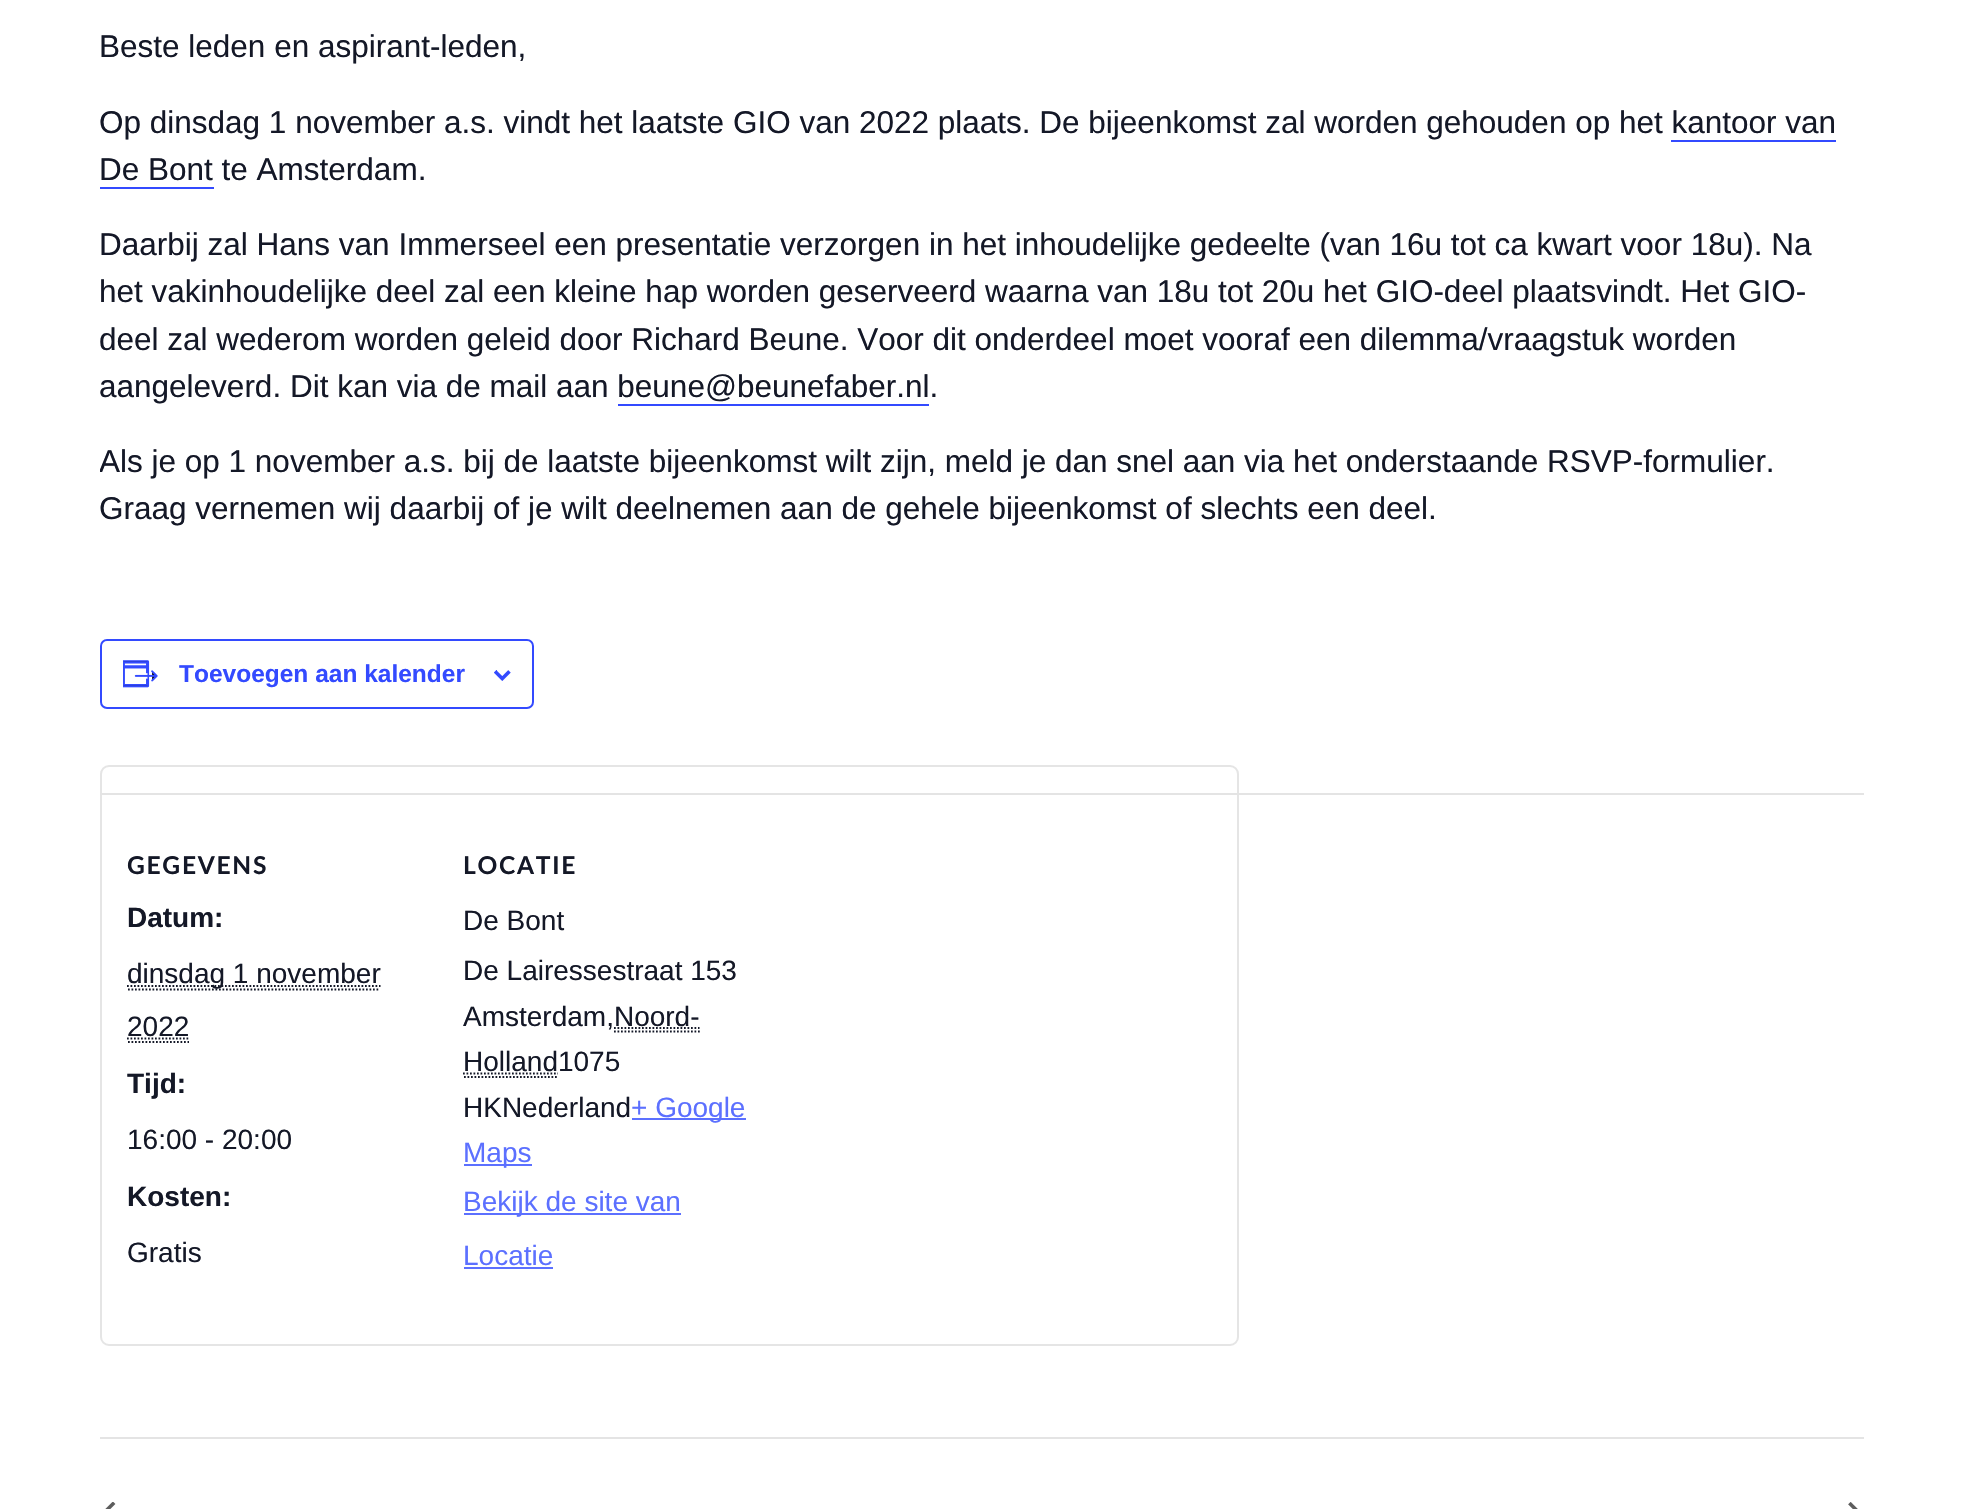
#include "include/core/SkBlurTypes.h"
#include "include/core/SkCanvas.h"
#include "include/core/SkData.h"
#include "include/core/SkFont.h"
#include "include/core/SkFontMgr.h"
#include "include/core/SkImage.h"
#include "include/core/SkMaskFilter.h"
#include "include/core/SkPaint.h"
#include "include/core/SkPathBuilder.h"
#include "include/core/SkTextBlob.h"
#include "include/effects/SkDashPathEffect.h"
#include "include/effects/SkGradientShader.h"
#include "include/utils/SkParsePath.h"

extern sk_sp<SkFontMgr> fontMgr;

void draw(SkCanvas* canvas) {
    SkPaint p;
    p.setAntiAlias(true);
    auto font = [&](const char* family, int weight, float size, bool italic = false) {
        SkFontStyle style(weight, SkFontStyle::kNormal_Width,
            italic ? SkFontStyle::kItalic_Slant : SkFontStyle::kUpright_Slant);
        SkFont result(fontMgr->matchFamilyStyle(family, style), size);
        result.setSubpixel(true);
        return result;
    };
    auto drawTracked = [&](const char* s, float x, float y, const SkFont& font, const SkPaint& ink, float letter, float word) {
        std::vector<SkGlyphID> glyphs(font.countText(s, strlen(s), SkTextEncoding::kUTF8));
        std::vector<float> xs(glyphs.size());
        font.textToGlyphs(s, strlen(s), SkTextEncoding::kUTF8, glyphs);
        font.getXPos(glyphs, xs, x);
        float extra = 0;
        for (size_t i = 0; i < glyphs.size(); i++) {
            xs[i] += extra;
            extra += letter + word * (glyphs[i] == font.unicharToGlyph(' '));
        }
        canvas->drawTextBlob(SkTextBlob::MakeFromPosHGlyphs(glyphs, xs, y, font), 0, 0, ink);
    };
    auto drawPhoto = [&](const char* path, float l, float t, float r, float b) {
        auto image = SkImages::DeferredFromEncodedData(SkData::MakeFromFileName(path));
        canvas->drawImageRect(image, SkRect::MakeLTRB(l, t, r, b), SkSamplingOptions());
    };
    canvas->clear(0xFFFFFFFF);
    auto font1 = font("Liberation Sans", 400, 31.5f);
    p.setColor(0xFF141827);
    {
        const struct { const char* s; float x, y; } items[] = {
            {"Beste leden en aspirant-leden,", 99, 57},
            {"Op dinsdag 1 november a.s. vindt het laatste GIO van 2022 plaats. De bijeenkomst zal worden gehouden op het kantoor van", 99, 133},
            {"De Bont te Amsterdam.", 99, 180},
        };
        for (auto [s, x, y] : items) {
            canvas->drawString(s, x, y, font1, p);
        }
    }
    p.setColor(0xFF334AFF);
    canvas->drawRect(SkRect::MakeLTRB(1671, 140, 1836, 142), p);
    canvas->drawRect(SkRect::MakeLTRB(100, 187, 214, 189), p);
    p.setColor(0xFF141827);
    {
        const struct { const char* s; float x, y; } items[] = {
            {"Daarbij zal Hans van Immerseel een presentatie verzorgen in het inhoudelijke gedeelte (van 16u tot ca kwart voor 18u). Na", 99, 255},
            {"het vakinhoudelijke deel zal een kleine hap worden geserveerd waarna van 18u tot 20u het GIO-deel plaatsvindt. Het GIO-", 99, 302},
            {"deel zal wederom worden geleid door Richard Beune. Voor dit onderdeel moet vooraf een dilemma/vraagstuk worden", 99, 350},
            {"aangeleverd. Dit kan via de mail aan beune@beunefaber.nl.", 99, 397},
        };
        for (auto [s, x, y] : items) {
            canvas->drawString(s, x, y, font1, p);
        }
    }
    p.setColor(0xFF334AFF);
    canvas->drawRect(SkRect::MakeLTRB(618, 404, 929, 406), p);
    canvas->save();
    canvas->clipRect(SkRect::MakeLTRB(100, 25, 1864, 1390));
    p.setColor(0xFF141827);
    canvas->drawString("Als je op 1 november a.s. bij de laatste bijeenkomst wilt zijn, meld je dan snel aan via het onderstaande RSVP-formulier.", 99, 472, font1, p);
    canvas->restore();
    canvas->drawString("Graag vernemen wij daarbij of je wilt deelnemen aan de gehele bijeenkomst of slechts een deel.", 99, 519, font1, p);
    p.setStyle(SkPaint::kStroke_Style);
    p.setStrokeWidth(2);
    p.setColor(0xFF334AFF);
    canvas->drawRoundRect(SkRect::MakeLTRB(101, 640, 533, 708), 6, 6, p);
    drawPhoto("media/1.png", 123, 660, 158, 688);
    auto font2 = font("Liberation Sans", 700, 24.5f);
    p.setStyle(SkPaint::kFill_Style);
    canvas->drawString("Toevoegen aan kalender", 179, 682, font2, p);
    drawPhoto("media/2.png", 494, 670, 511, 681);
    p.setStyle(SkPaint::kStroke_Style);
    p.setColor(0xFFE5E5E5);
    canvas->drawRoundRect(SkRect::MakeLTRB(101, 766, 1238, 1345), 8, 8, p);
    p.setStyle(SkPaint::kFill_Style);
    p.setColor(0xFFE4E4E4);
    canvas->drawRect(SkRect::MakeLTRB(100, 793, 1864, 795), p);
    auto font3 = font("Lato", 700, 24.5f);
    p.setColor(0xFF141827);
    drawTracked("GEGEVENS", 127, 874, font3, p, 1.75f, 0);
    auto font4 = font("Liberation Sans", 700, 28);
    canvas->drawString("Datum:", 127, 927, font4, p);
    p.setStyle(SkPaint::kStroke_Style);
    p.setStrokeWidth(1.8f);
    p.setPathEffect(SkDashPathEffect::Make({{1.75f, 1.75f}}, 0));
    canvas->drawPath(SkPathBuilder().moveTo(128, 989.5f).lineTo(380, 989.5f).detach(), p);
    p.setPathEffect(nullptr);
    p.setPathEffect(SkDashPathEffect::Make({{1.75f, 1.75f}}, 0));
    canvas->drawPath(SkPathBuilder().moveTo(127, 986).lineTo(380.5f, 986).detach(), p);
    p.setPathEffect(nullptr);
    auto font5 = font("Liberation Sans", 400, 28);
    p.setStyle(SkPaint::kFill_Style);
    canvas->drawString("dinsdag 1 november", 127, 983, font5, p);
    canvas->drawString("2022", 127, 1036, font5, p);
    p.setStyle(SkPaint::kStroke_Style);
    p.setPathEffect(SkDashPathEffect::Make({{1.75f, 1.75f}}, 0));
    canvas->drawPath(SkPathBuilder().moveTo(128, 1042).lineTo(189, 1042).detach(), p);
    p.setPathEffect(nullptr);
    p.setPathEffect(SkDashPathEffect::Make({{1.75f, 1.75f}}, 0));
    canvas->drawPath(SkPathBuilder().moveTo(127, 1038.5f).lineTo(189, 1038.5f).detach(), p);
    p.setPathEffect(nullptr);
    p.setStyle(SkPaint::kFill_Style);
    canvas->drawString("Tijd:", 127, 1093, font4, p);
    canvas->drawString("16:00 - 20:00", 127, 1149, font5, p);
    canvas->drawString("Kosten:", 127, 1206, font4, p);
    canvas->drawString("Gratis", 127, 1262, font5, p);
    drawTracked("LOCATIE", 463, 874, font3, p, 1.75f, 0);
    {
        const struct { const char* s; float x, y; } items[] = {
            {"De Bont", 463, 930},
            {"De Lairessestraat 153", 463, 980},
            {"Amsterdam,Noord-", 463, 1026},
        };
        for (auto [s, x, y] : items) {
            canvas->drawString(s, x, y, font5, p);
        }
    }
    p.setStyle(SkPaint::kStroke_Style);
    p.setPathEffect(SkDashPathEffect::Make({{1.75f, 1.75f}}, 0));
    canvas->drawPath(SkPathBuilder().moveTo(614, 1031.5f).lineTo(700, 1031.5f).detach(), p);
    p.setPathEffect(nullptr);
    p.setPathEffect(SkDashPathEffect::Make({{1.75f, 1.75f}}, 0));
    canvas->drawPath(SkPathBuilder().moveTo(614, 1028).lineTo(699.5f, 1028).detach(), p);
    p.setPathEffect(nullptr);
    p.setStyle(SkPaint::kFill_Style);
    canvas->drawString("Holland1075", 463, 1071, font5, p);
    p.setStyle(SkPaint::kStroke_Style);
    p.setPathEffect(SkDashPathEffect::Make({{1.75f, 1.75f}}, 0));
    canvas->drawPath(SkPathBuilder().moveTo(464, 1077).lineTo(558, 1077).detach(), p);
    p.setPathEffect(nullptr);
    p.setPathEffect(SkDashPathEffect::Make({{1.75f, 1.75f}}, 0));
    canvas->drawPath(SkPathBuilder().moveTo(463, 1073.5f).lineTo(558, 1073.5f).detach(), p);
    p.setPathEffect(nullptr);
    p.setStyle(SkPaint::kFill_Style);
    canvas->drawString("HKNederland", 463, 1117, font5, p);
    p.setColor(0xFF5C70FF);
    canvas->drawRect(SkRect::MakeLTRB(632, 1118, 746, 1120), p);
    canvas->drawString("+ Google", 631, 1117, font5, p);
    canvas->drawRect(SkRect::MakeLTRB(464, 1164, 532, 1166), p);
    canvas->drawString("Maps", 463, 1162, font5, p);
    canvas->drawRect(SkRect::MakeLTRB(464, 1213, 681, 1215), p);
    canvas->drawString("Bekijk de site van", 463, 1211, font5, p);
    canvas->drawString("Locatie", 463, 1265, font5, p);
    canvas->drawRect(SkRect::MakeLTRB(464, 1267, 553, 1269), p);
    p.setColor(0xFFE4E4E4);
    canvas->drawRect(SkRect::MakeLTRB(100, 1437, 1864, 1439), p);
    drawPhoto("media/3.png", 105, 1502, 116, 1509);
    drawPhoto("media/4.png", 1848, 1502, 1858, 1509);
}
